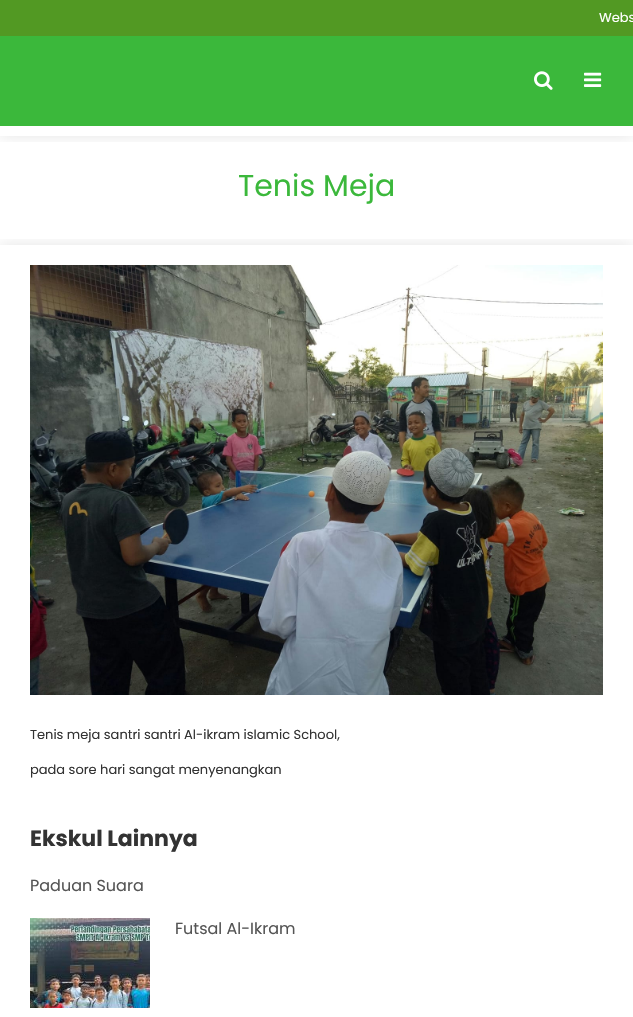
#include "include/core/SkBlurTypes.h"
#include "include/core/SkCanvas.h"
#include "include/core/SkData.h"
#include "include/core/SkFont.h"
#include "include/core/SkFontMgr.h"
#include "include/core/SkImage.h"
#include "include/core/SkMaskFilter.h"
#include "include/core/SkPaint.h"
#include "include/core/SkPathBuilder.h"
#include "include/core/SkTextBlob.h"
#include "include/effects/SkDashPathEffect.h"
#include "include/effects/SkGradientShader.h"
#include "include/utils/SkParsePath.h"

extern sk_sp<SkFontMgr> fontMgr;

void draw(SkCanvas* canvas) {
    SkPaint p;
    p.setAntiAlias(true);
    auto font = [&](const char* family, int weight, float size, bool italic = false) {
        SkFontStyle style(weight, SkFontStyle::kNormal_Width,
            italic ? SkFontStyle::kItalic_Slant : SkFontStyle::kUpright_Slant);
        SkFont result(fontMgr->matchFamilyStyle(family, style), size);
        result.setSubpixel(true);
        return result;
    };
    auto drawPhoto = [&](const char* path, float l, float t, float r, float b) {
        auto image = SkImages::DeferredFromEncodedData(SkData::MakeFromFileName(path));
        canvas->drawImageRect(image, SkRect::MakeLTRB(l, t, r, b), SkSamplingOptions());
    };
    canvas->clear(0xFFFFFFFF);
    canvas->save();
    canvas->clipRect(SkRect::MakeLTRB(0, 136, 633, 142));
    p.setColor(0x1A000000);
    p.setMaskFilter(SkMaskFilter::MakeBlur(kNormal_SkBlurStyle, 7.5f));
    canvas->drawRect(SkRect::MakeLTRB(0, 0, 633, 136), p);
    p.setMaskFilter(nullptr);
    canvas->restore();
    p.setColor(0xFF529923);
    canvas->drawRect(SkRect::MakeLTRB(0, 0, 633, 36), p);
    auto font1 = font("Poppins", 400, 13);
    p.setColor(0xFFFFFFFF);
    canvas->drawString("Webs", 599, 22, font1, p);
    p.setColor(0xFF3BB83B);
    canvas->drawRect(SkRect::MakeLTRB(0, 36, 633, 126), p);
    drawPhoto("media/1.png", 534, 71, 553, 90);
    drawPhoto("media/2.png", 584, 72, 602, 87);
    auto font2 = font("Poppins", 400, 30);
    canvas->drawString("Tenis Meja", 238, 196, font2, p);
    canvas->save();
    canvas->clipRect(SkRect::MakeLTRB(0, 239, 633, 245));
    p.setColor(0x1A000000);
    p.setMaskFilter(SkMaskFilter::MakeBlur(kNormal_SkBlurStyle, 7.5f));
    canvas->drawRect(SkRect::MakeLTRB(0, 245, 633, 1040), p);
    p.setMaskFilter(nullptr);
    canvas->restore();
    drawPhoto("media/3.png", 30, 265, 603, 695);
    p.setColor(0xFF333333);
    canvas->drawString("Tenis meja santri santri Al-ikram islamic School,", 30, 739, font1, p);
    canvas->drawString("pada sore hari sangat menyenangkan", 30, 774, font1, p);
    auto font3 = font("Poppins", 700, 22);
    canvas->drawString("Ekskul Lainnya", 30, 846, font3, p);
    auto font4 = font("Poppins", 400, 16);
    p.setColor(0xFF555555);
    canvas->drawString("Paduan Suara", 30, 891, font4, p);
    drawPhoto("media/4.png", 30, 918, 150, 1008);
    canvas->drawString("Futsal Al-Ikram", 175, 934, font4, p);
}
